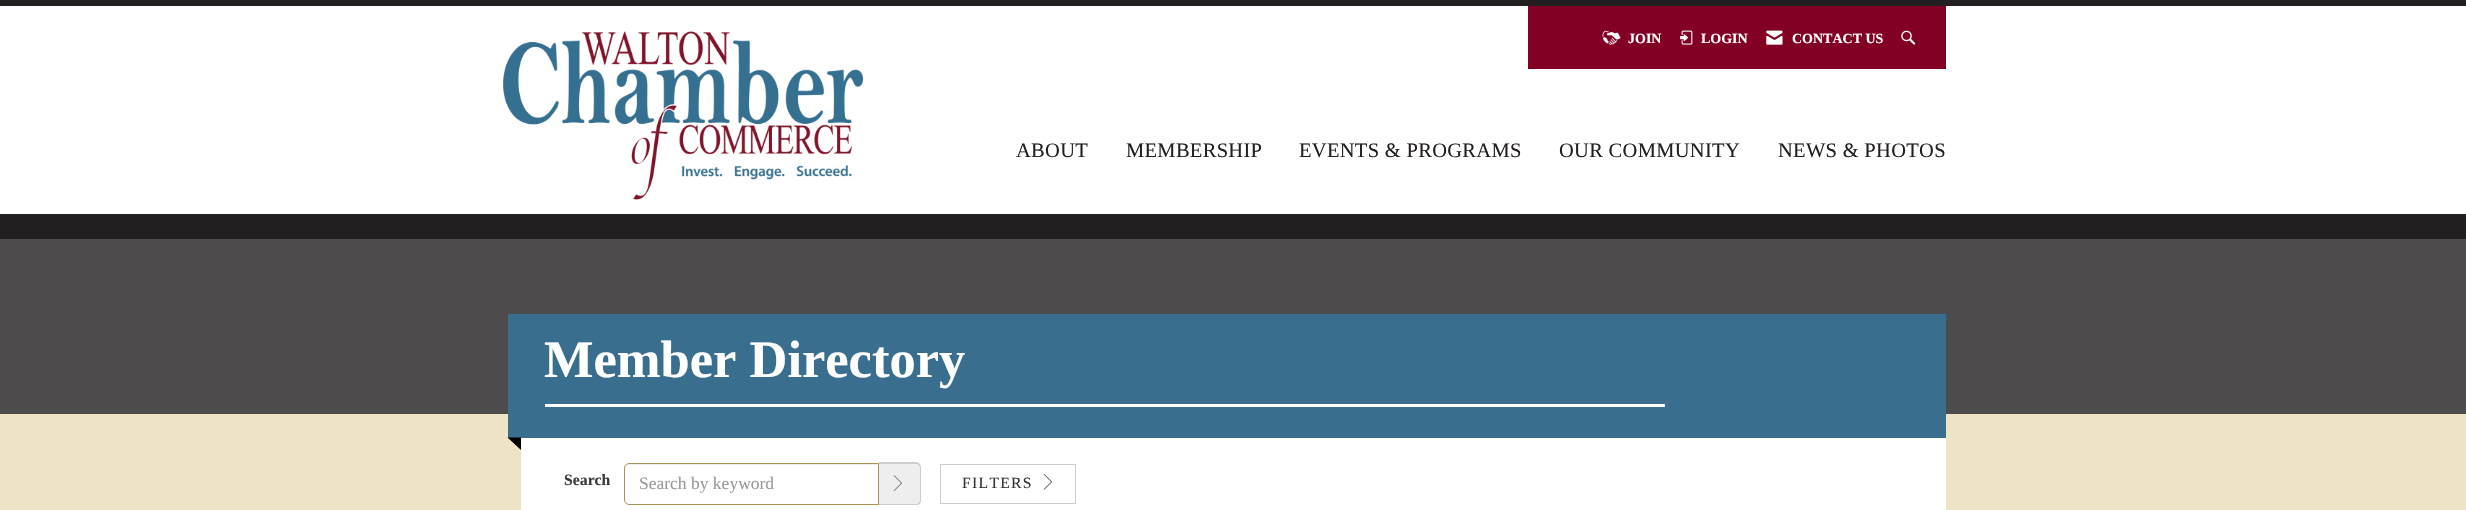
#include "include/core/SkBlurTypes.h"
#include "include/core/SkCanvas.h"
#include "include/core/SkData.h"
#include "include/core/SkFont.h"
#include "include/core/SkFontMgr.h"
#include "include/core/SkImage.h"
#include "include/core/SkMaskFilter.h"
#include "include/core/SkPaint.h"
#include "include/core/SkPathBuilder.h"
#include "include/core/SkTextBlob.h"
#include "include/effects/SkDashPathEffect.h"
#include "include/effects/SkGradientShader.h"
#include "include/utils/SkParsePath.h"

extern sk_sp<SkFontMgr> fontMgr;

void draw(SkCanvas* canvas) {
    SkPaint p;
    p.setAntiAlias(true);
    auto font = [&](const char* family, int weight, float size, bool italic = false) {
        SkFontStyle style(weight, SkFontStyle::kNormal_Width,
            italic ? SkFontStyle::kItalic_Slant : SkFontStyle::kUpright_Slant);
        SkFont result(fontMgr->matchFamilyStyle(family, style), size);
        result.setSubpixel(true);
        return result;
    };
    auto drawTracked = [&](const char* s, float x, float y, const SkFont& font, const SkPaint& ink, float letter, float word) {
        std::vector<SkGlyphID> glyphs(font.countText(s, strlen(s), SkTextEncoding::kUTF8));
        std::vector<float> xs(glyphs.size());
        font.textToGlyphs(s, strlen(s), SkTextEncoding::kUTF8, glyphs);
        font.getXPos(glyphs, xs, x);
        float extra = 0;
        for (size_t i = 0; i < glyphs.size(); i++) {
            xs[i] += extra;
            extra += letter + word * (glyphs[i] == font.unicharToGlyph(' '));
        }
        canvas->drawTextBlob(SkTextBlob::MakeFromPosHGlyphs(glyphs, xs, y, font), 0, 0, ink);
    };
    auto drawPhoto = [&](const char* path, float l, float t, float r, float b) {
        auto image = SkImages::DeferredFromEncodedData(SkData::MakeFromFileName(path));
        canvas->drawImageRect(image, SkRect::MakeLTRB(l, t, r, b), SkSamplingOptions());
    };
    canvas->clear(0xFFFFFFFF);
    p.setColor(0xFF231F20);
    canvas->drawRect(SkRect::MakeLTRB(0, 0, 2466, 6), p);
    p.setColor(0xFF820024);
    canvas->drawRect(SkRect::MakeLTRB(1528, 6, 1946, 69), p);
    drawPhoto("media/1.png", 1602, 30, 1621, 45);
    auto font1 = font("Liberation Serif", 700, 14);
    p.setColor(0xFFFFFFFF);
    canvas->drawString("JOIN", 1628, 43, font1, p);
    drawPhoto("media/2.png", 1680, 30, 1693, 45);
    canvas->drawString("LOGIN", 1701, 43, font1, p);
    drawPhoto("media/3.png", 1766, 30, 1783, 45);
    canvas->drawString("CONTACT US", 1792, 43, font1, p);
    drawPhoto("media/4.png", 1901, 30, 1916, 45);
    drawPhoto("media/5.png", 503, 31, 863, 200);
    auto font2 = font("Liberation Serif", 400, 20.5f);
    p.setColor(0xFF231F20);
    {
        const struct { const char* s; float x, y; } items[] = {
            {"ABOUT", 1016, 157},
            {"MEMBERSHIP", 1126, 157},
            {"EVENTS & PROGRAMS", 1299, 157},
            {"OUR COMMUNITY", 1559, 157},
            {"NEWS & PHOTOS", 1778, 157},
        };
        for (auto [s, x, y] : items) {
            drawTracked(s, x, y, font2, p, 0.3f, 0);
        }
    }
    {
        const struct { float l, t, r, b; SkColor color; } items[] = {
            {0, 214, 2466, 239, 0xFF231F20},
            {0, 414, 2466, 510, 0xFFEEE3C5},
            {0, 239, 2466, 414, 0xFF4D4B4C},
            {508, 314, 1946, 438, 0xFF396E8E},
            {545, 404, 1665, 407, 0xFFFFFFFF},
        };
        for (auto [l, t, r, b, color] : items) {
            p.setColor(color);
            canvas->drawRect(SkRect::MakeLTRB(l, t, r, b), p);
        }
    }
    auto font3 = font("Liberation Serif", 700, 52.5f);
    canvas->drawString("Member Directory", 544, 377, font3, p);
    p.setColor(0xFF000000);
    canvas->drawPath(SkPathBuilder().moveTo(507.5f, 437.5f).lineTo(521, 437.5f).lineTo(521, 450).close().detach(), p);
    p.setColor(0xFFFFFFFF);
    canvas->drawRect(SkRect::MakeLTRB(521, 438, 1946, 510), p);
    auto font4 = font("Liberation Serif", 700, 15.75f);
    p.setColor(0xFF3A3A3A);
    canvas->drawString("Search", 564, 485, font4, p);
    p.setColor(0xFFECECEC);
    canvas->drawPath(SkPathBuilder().moveTo(629, 465).lineTo(878, 465).lineTo(878, 464).lineTo(629, 464).cubicTo(627, 464, 625, 466, 625, 468).lineTo(625, 469).cubicTo(625, 467, 627, 465, 629, 465).close().detach(), p);
    p.setStyle(SkPaint::kStroke_Style);
    p.setStrokeWidth(1);
    p.setColor(0xFFA99357);
    canvas->drawPath(SkPathBuilder().moveTo(629, 463.5f).lineTo(878.5f, 463.5f).lineTo(878.5f, 504.5f).lineTo(629, 504.5f).cubicTo(626.5f, 504.5f, 624.5f, 502.5f, 624.5f, 500).lineTo(624.5f, 468).cubicTo(624.5f, 465.5f, 626.5f, 463.5f, 629, 463.5f).close().detach(), p);
    auto font5 = font("Liberation Serif", 400, 17.5f);
    p.setStyle(SkPaint::kFill_Style);
    p.setColor(0xFF999999);
    canvas->drawString("Search by keyword", 639, 489, font5, p);
    p.setColor(0xFFEEEEEE);
    canvas->drawPath(SkPathBuilder().moveTo(879, 463).lineTo(916, 463).cubicTo(919, 463, 921, 465, 921, 468).lineTo(921, 500).cubicTo(921, 503, 919, 505, 916, 505).lineTo(879, 505).close().detach(), p);
    p.setColor(0xFFCCCCCC);
    canvas->drawPath(SkPathBuilder(SkPathFillType::kEvenOdd).moveTo(879, 462).lineTo(916, 462).cubicTo(919, 462, 921, 465, 921, 468).lineTo(921, 500).cubicTo(921, 503, 919, 505, 916, 505).lineTo(879, 505).close().moveTo(879, 464).lineTo(916, 464).cubicTo(918, 464, 920, 465, 920, 468).lineTo(920, 500).cubicTo(920, 502, 918, 504, 916, 504).lineTo(879, 504).close().detach(), p);
    drawPhoto("media/6.png", 893, 475, 902, 491);
    p.setStyle(SkPaint::kStroke_Style);
    canvas->drawRect(SkRect::MakeLTRB(940.5f, 464.5f, 1075.5f, 503.5f), p);
    auto font6 = font("Liberation Serif", 400, 15.75f);
    p.setStyle(SkPaint::kFill_Style);
    p.setColor(0xFF333333);
    drawTracked("FILTERS", 962, 488, font6, p, 1.25f, 0);
    drawPhoto("media/7.png", 1043, 474, 1052, 490);
}
